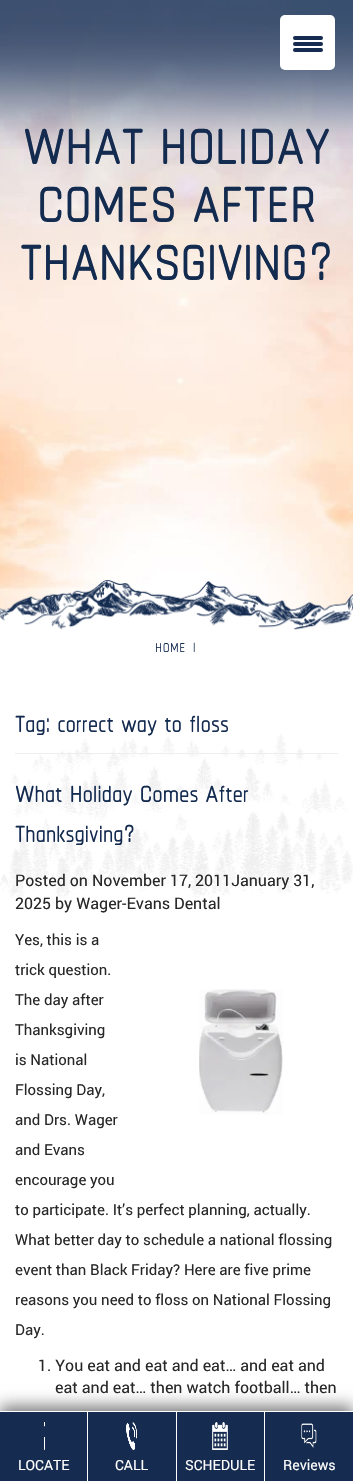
#include "include/core/SkBlurTypes.h"
#include "include/core/SkCanvas.h"
#include "include/core/SkData.h"
#include "include/core/SkFont.h"
#include "include/core/SkFontMgr.h"
#include "include/core/SkImage.h"
#include "include/core/SkMaskFilter.h"
#include "include/core/SkPaint.h"
#include "include/core/SkPathBuilder.h"
#include "include/core/SkTextBlob.h"
#include "include/effects/SkDashPathEffect.h"
#include "include/effects/SkGradientShader.h"
#include "include/utils/SkParsePath.h"

extern sk_sp<SkFontMgr> fontMgr;

void draw(SkCanvas* canvas) {
    SkPaint p;
    p.setAntiAlias(true);
    auto font = [&](const char* family, int weight, float size, bool italic = false) {
        SkFontStyle style(weight, SkFontStyle::kNormal_Width,
            italic ? SkFontStyle::kItalic_Slant : SkFontStyle::kUpright_Slant);
        SkFont result(fontMgr->matchFamilyStyle(family, style), size);
        result.setSubpixel(true);
        return result;
    };
    auto drawTracked = [&](const char* s, float x, float y, const SkFont& font, const SkPaint& ink, float letter, float word) {
        std::vector<SkGlyphID> glyphs(font.countText(s, strlen(s), SkTextEncoding::kUTF8));
        std::vector<float> xs(glyphs.size());
        font.textToGlyphs(s, strlen(s), SkTextEncoding::kUTF8, glyphs);
        font.getXPos(glyphs, xs, x);
        float extra = 0;
        for (size_t i = 0; i < glyphs.size(); i++) {
            xs[i] += extra;
            extra += letter + word * (glyphs[i] == font.unicharToGlyph(' '));
        }
        canvas->drawTextBlob(SkTextBlob::MakeFromPosHGlyphs(glyphs, xs, y, font), 0, 0, ink);
    };
    auto drawPhoto = [&](const char* path, float l, float t, float r, float b) {
        auto image = SkImages::DeferredFromEncodedData(SkData::MakeFromFileName(path));
        canvas->drawImageRect(image, SkRect::MakeLTRB(l, t, r, b), SkSamplingOptions());
    };
    canvas->clear(0xFFFFFFFF);
    drawPhoto("media/2.png", 0, 0, 353, 612);
    auto font1 = font("Chathura", 700, 87);
    p.setColor(0xFF142B50);
    canvas->drawString("WHAT HOLIDAY", 23, 164, font1, p);
    drawPhoto("media/1.png", 0, 0, 353, 149);
    p.setColor(0xFFFFFFFF);
    canvas->drawRoundRect(SkRect::MakeLTRB(280, 15, 335, 70), 5, 5, p);
    p.setColor(0xFF162B50);
    canvas->drawRoundRect(SkRect::MakeLTRB(293, 42, 323, 46), 2, 2, p);
    canvas->drawRoundRect(SkRect::MakeLTRB(293, 36, 323, 40), 2, 2, p);
    canvas->drawRoundRect(SkRect::MakeLTRB(293, 48, 323, 52), 2, 2, p);
    p.setColor(0xFF142B50);
    canvas->drawString("COMES AFTER", 37, 222, font1, p);
    canvas->drawString("THANKSGIVING?", 20, 280, font1, p);
    drawPhoto("media/3.png", 0, 580, 353, 637);
    auto font2 = font("Chathura", 400, 22);
    drawTracked("HOME", 155, 652, font2, p, 0.5f, 0);
    drawTracked("|", 193, 652, font2, p, 0.5f, 0);
    drawPhoto("media/5.png", 0, 734, 353, 898);
    p.setColor(0xFFEEEEEE);
    canvas->drawRect(SkRect::MakeLTRB(15, 753, 338, 754), p);
    auto font3 = font("Chathura", 700, 40);
    p.setColor(0xFF142B50);
    {
        const struct { const char* s; float x, y; } items[] = {
            {"Tag: correct way to floss", 15, 732},
            {"What Holiday Comes After", 15, 802},
            {"Thanksgiving?", 15, 842},
        };
        for (auto [s, x, y] : items) {
            canvas->drawString(s, x, y, font3, p);
        }
    }
    auto font4 = font("Roboto", 400, 16);
    p.setColor(0xFF282828);
    canvas->drawString("Posted on November 17, 2011January 31,", 15, 886, font4, p);
    canvas->drawString("2025 by Wager-Evans Dental", 15, 909, font4, p);
    auto font5 = font("Roboto", 400, 15);
    {
        const struct { const char* s; float x, y; } items[] = {
            {"Yes, this is a", 15, 945},
            {"trick question.", 15, 975},
            {"The day after", 15, 1005},
        };
        for (auto [s, x, y] : items) {
            canvas->drawString(s, x, y, font5, p);
        }
    }
    drawPhoto("media/4.png", 199, 989, 283, 1115);
    {
        const struct { const char* s; float x, y; } items[] = {
            {"Thanksgiving", 15, 1035},
            {"is National", 15, 1065},
            {"Flossing Day,", 15, 1095},
            {"and Drs. Wager", 15, 1125},
            {"and Evans", 15, 1155},
            {"encourage you", 15, 1185},
            {"to participate. It’s perfect planning, actually.", 15, 1215},
            {"What better day to schedule a national flossing", 15, 1245},
            {"event than Black Friday? Here are five prime", 15, 1275},
            {"reasons you need to floss on National Flossing", 15, 1305},
            {"Day.", 15, 1335},
        };
        for (auto [s, x, y] : items) {
            canvas->drawString(s, x, y, font5, p);
        }
    }
    canvas->drawString("1. You eat and eat and eat… and eat and", 38, 1371, font4, p);
    canvas->drawString("eat and eat… then watch football… then", 55, 1393, font4, p);
    p.setColor(0x87000000);
    p.setMaskFilter(SkMaskFilter::MakeBlur(kNormal_SkBlurStyle, 7.5f));
    canvas->drawRect(SkRect::MakeLTRB(0, 1406, 353, 1476), p);
    p.setMaskFilter(nullptr);
    {
        const struct { float l, t, r, b; SkColor color; } items[] = {
            {0, 1412, 353, 1481, 0xFF162B50},
            {0, 1411, 353, 1412, 0xFFFFFFFF},
            {87, 1412, 88, 1481, 0xFFFFFFFF},
        };
        for (auto [l, t, r, b, color] : items) {
            p.setColor(color);
            canvas->drawRect(SkRect::MakeLTRB(l, t, r, b), p);
        }
    }
    drawPhoto("media/6.png", 44, 1422, 45, 1450);
    auto font6 = font("Roboto", 400, 14);
    canvas->drawString("LOCATE", 18, 1470, font6, p);
    canvas->drawRect(SkRect::MakeLTRB(176, 1412, 177, 1481), p);
    drawPhoto("media/7.png", 126, 1422, 137, 1450);
    canvas->drawString("CALL", 115, 1470, font6, p);
    canvas->drawRect(SkRect::MakeLTRB(264, 1412, 265, 1481), p);
    drawPhoto("media/8.png", 212, 1422, 228, 1450);
    canvas->drawString("SCHEDULE", 185, 1470, font6, p);
    drawPhoto("media/9.png", 301, 1423, 317, 1448);
    canvas->drawString("Reviews", 283, 1470, font6, p);
}
